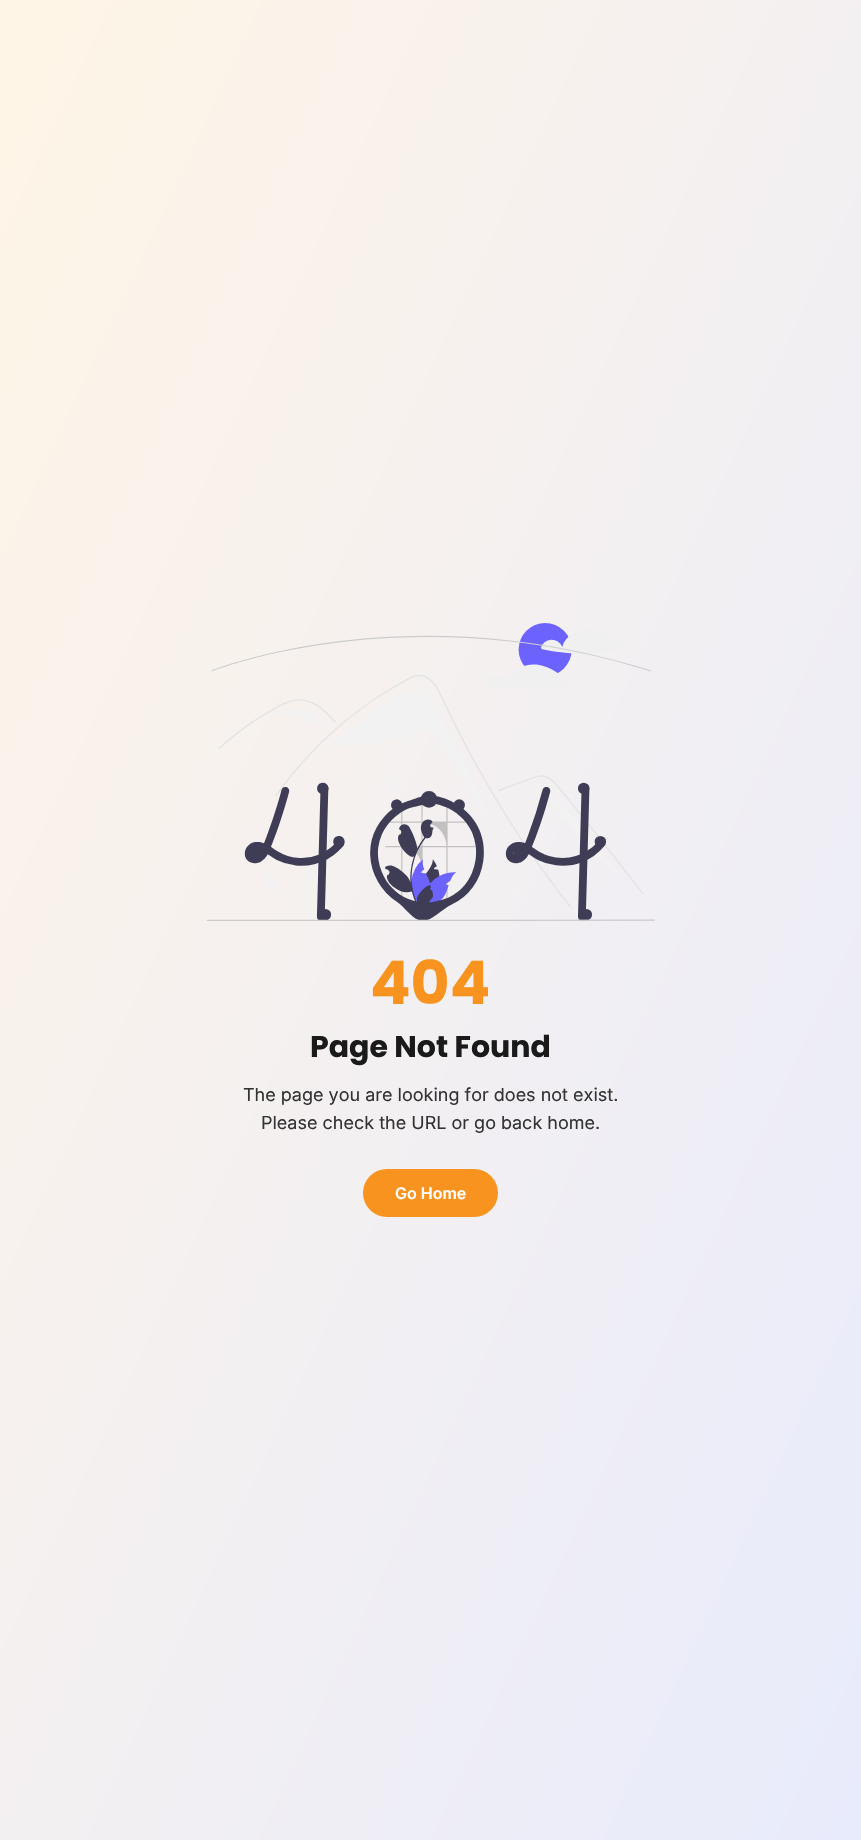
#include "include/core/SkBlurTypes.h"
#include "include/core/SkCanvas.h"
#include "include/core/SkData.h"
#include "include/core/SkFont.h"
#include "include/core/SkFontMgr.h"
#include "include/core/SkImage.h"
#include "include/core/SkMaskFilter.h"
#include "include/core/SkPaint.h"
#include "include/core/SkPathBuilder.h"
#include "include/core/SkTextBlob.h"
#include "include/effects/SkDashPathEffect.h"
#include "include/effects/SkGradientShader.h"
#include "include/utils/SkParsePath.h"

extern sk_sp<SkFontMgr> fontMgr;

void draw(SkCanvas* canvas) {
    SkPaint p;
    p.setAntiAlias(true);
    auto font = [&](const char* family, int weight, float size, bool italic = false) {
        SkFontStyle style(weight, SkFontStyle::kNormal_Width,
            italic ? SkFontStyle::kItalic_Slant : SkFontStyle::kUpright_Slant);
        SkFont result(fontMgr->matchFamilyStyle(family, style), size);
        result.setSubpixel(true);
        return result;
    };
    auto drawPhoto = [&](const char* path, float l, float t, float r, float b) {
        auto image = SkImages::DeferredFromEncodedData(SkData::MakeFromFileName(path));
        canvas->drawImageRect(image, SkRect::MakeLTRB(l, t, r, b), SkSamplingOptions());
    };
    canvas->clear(0xFFFFFFFF);
    {
        const SkColor colors[] = {0xFFFFF5E6, 0xFFE8EBFC};
        const float stops[] = {0, 1};
        const SkPoint ends[] = {{-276, 589}, {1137, 1251}};
        p.setShader(SkGradientShader::MakeLinear(ends, colors, stops, 2, SkTileMode::kClamp));
        p.setAlpha(255);
    }
    canvas->drawRect(SkRect::MakeLTRB(0, 0, 861, 1840), p);
    drawPhoto("media/1.png", 207, 623, 655, 921);
    auto font1 = font("Poppins", 700, 60);
    p.setShader(nullptr);
    p.setColor(0xFFF7931E);
    canvas->drawString("404", 370, 1004, font1, p);
    auto font2 = font("Poppins", 700, 30);
    p.setColor(0xFF1A1A1A);
    canvas->drawString("Page Not Found", 310, 1057, font2, p);
    auto font3 = font("Inter", 400, 18);
    p.setColor(0xFF333333);
    canvas->drawString("The page you are looking for does not exist.", 243, 1101, font3, p);
    canvas->drawString("Please check the URL or go back home.", 261, 1129, font3, p);
    p.setColor(0xFFF7931E);
    canvas->drawRoundRect(SkRect::MakeLTRB(363, 1169, 498, 1217), 24, 24, p);
    auto font4 = font("Inter", 600, 16);
    p.setColor(0xFFFFFFFF);
    canvas->drawString("Go Home", 395, 1199, font4, p);
}
